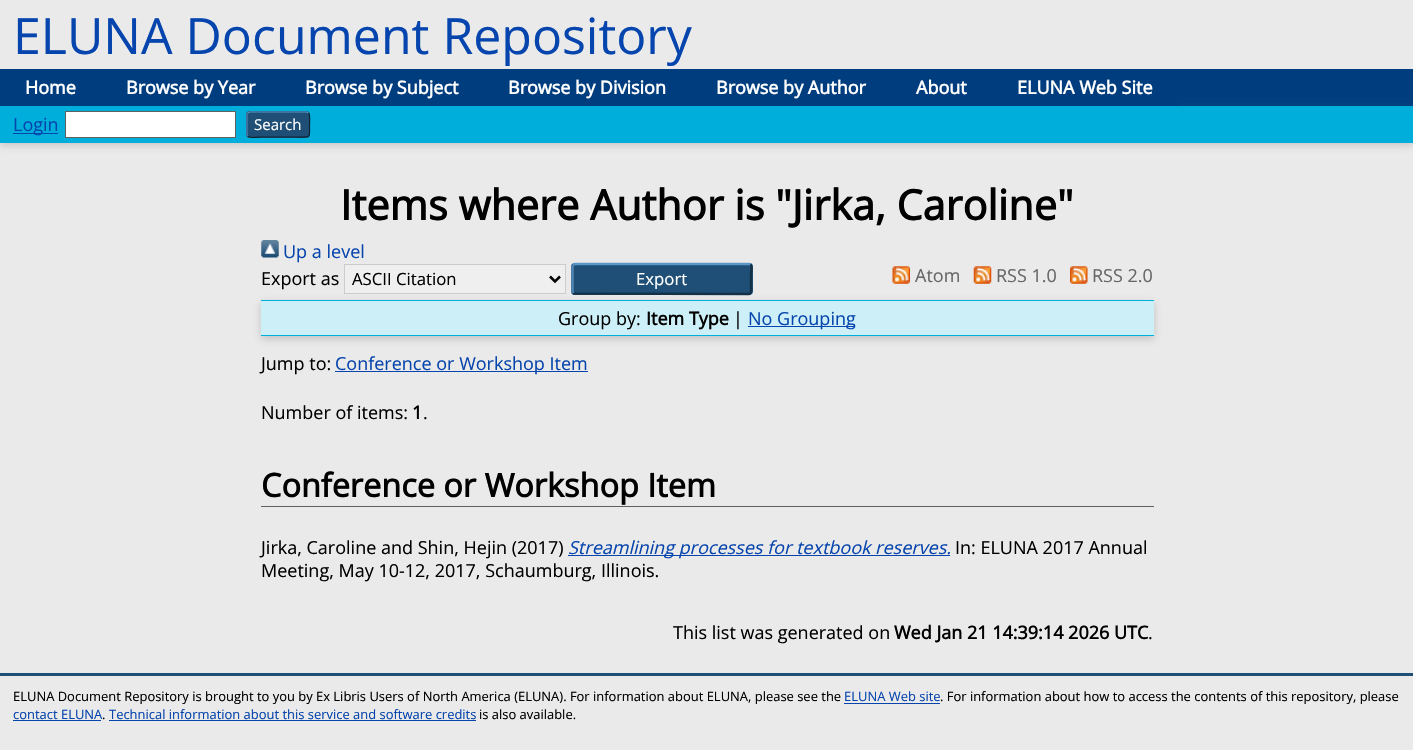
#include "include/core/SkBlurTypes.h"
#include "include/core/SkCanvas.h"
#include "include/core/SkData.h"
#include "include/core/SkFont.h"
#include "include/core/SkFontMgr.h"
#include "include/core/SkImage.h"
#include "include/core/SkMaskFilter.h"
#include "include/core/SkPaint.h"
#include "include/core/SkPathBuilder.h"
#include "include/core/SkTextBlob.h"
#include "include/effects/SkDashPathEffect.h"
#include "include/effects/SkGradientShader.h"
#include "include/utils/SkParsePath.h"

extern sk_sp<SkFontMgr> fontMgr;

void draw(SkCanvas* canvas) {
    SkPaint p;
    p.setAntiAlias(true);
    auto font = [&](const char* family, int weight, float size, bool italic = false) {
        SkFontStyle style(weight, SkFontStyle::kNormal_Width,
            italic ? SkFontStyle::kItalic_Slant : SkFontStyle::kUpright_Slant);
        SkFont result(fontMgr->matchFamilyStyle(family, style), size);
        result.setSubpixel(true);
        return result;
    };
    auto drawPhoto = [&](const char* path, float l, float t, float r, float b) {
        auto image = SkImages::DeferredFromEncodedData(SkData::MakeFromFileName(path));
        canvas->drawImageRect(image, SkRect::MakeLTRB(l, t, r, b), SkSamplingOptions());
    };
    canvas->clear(0xFFEAEAEA);
    auto font1 = font("Open Sans", 400, 50);
    p.setColor(0xFF0645AD);
    canvas->drawString("ELUNA Document Repository", 13, 54, font1, p);
    p.setColor(0xFF003D7E);
    canvas->drawRect(SkRect::MakeLTRB(1178, 69, 1413, 106), p);
    p.setColor(0x4D646464);
    p.setMaskFilter(SkMaskFilter::MakeBlur(kNormal_SkBlurStyle, 4));
    canvas->drawRect(SkRect::MakeLTRB(0, 109, 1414, 145), p);
    p.setMaskFilter(nullptr);
    p.setColor(0xFF003D7E);
    canvas->drawRect(SkRect::MakeLTRB(0, 69, 1178, 106), p);
    auto font2 = font("Open Sans", 700, 18);
    p.setColor(0xFFFFFFFF);
    {
        const struct { const char* s; float x, y; } items[] = {
            {"Home", 25, 94},
            {"Browse by Year", 126, 94},
            {"Browse by Subject", 305, 94},
            {"Browse by Division", 508, 94},
            {"Browse by Author", 716, 94},
            {"About", 916, 94},
            {"ELUNA Web Site", 1017, 94},
        };
        for (auto [s, x, y] : items) {
            canvas->drawString(s, x, y, font2, p);
        }
    }
    p.setColor(0xFF00AEDB);
    canvas->drawRect(SkRect::MakeLTRB(0, 106, 1413, 143), p);
    p.setColor(0xFF0645AD);
    canvas->drawRect(SkRect::MakeLTRB(13, 133, 58, 134), p);
    auto font3 = font("Open Sans", 400, 18);
    canvas->drawString("Login", 13, 131, font3, p);
    p.setColor(0xFFFFFFFF);
    canvas->drawRect(SkRect::MakeLTRB(65.5f, 111.5f, 235.5f, 137.5f), p);
    p.setStyle(SkPaint::kStroke_Style);
    p.setStrokeWidth(1);
    p.setColor(0xFF606060);
    canvas->drawRect(SkRect::MakeLTRB(65.5f, 111.5f, 235.5f, 137.5f), p);
    p.setStyle(SkPaint::kFill_Style);
    p.setColor(0xFF1F4F76);
    canvas->drawRoundRect(SkRect::MakeLTRB(246, 111, 310, 138), 4, 4, p);
    p.setStyle(SkPaint::kStroke_Style);
    p.setStrokeWidth(1.2f);
    p.setColor(0xFF5B97C7);
    canvas->drawPath(SkPathBuilder().moveTo(248, 113).lineTo(249.5f, 112).lineTo(306.5f, 112).lineTo(308.5f, 113).detach(), p);
    p.setColor(0xFF0D2131);
    canvas->drawPath(SkPathBuilder().moveTo(308.5f, 113).cubicTo(310.5f, 115, 309.5f, 122, 309.5f, 124.5f).cubicTo(309.5f, 138.5f, 311.5f, 137, 297, 137).lineTo(259.5f, 137).cubicTo(258.5f, 137, 250, 138.5f, 248, 136).detach(), p);
    p.setColor(0xFF5287B3);
    canvas->drawPath(SkPathBuilder().moveTo(248, 136).cubicTo(247, 135.5f, 247, 134.5f, 247, 134).lineTo(247, 115).cubicTo(247, 114, 247, 113.5f, 248, 113).detach(), p);
    auto font4 = font("Open Sans", 400, 15);
    p.setStyle(SkPaint::kFill_Style);
    p.setColor(0xFFFFFFFF);
    canvas->drawString("Search", 254, 130, font4, p);
    auto font5 = font("Open Sans", 700, 41.4f);
    p.setColor(0xFF000000);
    canvas->drawString("Items where Author is \"Jirka, Caroline\"", 340, 220, font5, p);
    drawPhoto("media/1.png", 261, 240, 279, 258);
    p.setColor(0xFF0645AD);
    canvas->drawString("Up a level", 283, 258, font3, p);
    p.setColor(0xFF000000);
    canvas->drawString("Export as", 261, 285, font3, p);
    p.setColor(0x4D646464);
    p.setMaskFilter(SkMaskFilter::MakeBlur(kNormal_SkBlurStyle, 4));
    canvas->drawRect(SkRect::MakeLTRB(261, 303, 1154, 339), p);
    p.setMaskFilter(nullptr);
    p.setColor(0xFFEFEFEF);
    canvas->drawRect(SkRect::MakeLTRB(344.5f, 264.5f, 565.5f, 293.5f), p);
    p.setStyle(SkPaint::kStroke_Style);
    p.setStrokeWidth(1);
    p.setColor(0xFFCCCCCC);
    canvas->drawRect(SkRect::MakeLTRB(344.5f, 264.5f, 565.5f, 293.5f), p);
    p.setStrokeWidth(2.5f);
    p.setColor(0xFF000000);
    canvas->drawPath(SkPathBuilder().moveTo(550, 276.5f).lineTo(555, 281.5f).lineTo(560, 276.5f).detach(), p);
    auto font6 = font("Open Sans", 400, 16.75f);
    p.setStyle(SkPaint::kFill_Style);
    canvas->drawString("ASCII Citation", 352, 285, font6, p);
    p.setColor(0xFF1F4F76);
    canvas->drawRoundRect(SkRect::MakeLTRB(571, 263, 753, 295), 4, 4, p);
    p.setStyle(SkPaint::kStroke_Style);
    p.setColor(0xFF5B97C7);
    canvas->drawPath(SkPathBuilder().moveTo(573, 264.5f).lineTo(575, 264).lineTo(749, 264).lineTo(750.5f, 264.5f).detach(), p);
    p.setColor(0xFF13324A);
    canvas->drawPath(SkPathBuilder().moveTo(750.5f, 264.5f).cubicTo(752.5f, 266.5f, 751, 272.5f, 751, 274.5f).lineTo(751, 287).cubicTo(751, 289, 752, 293.5f, 749, 294).lineTo(574.5f, 293.5f).lineTo(573, 293).detach(), p);
    p.setColor(0xFF5287B3);
    canvas->drawPath(SkPathBuilder().moveTo(573, 293).cubicTo(573, 292.5f, 572.5f, 292, 572.5f, 291).lineTo(572.5f, 266).cubicTo(572.5f, 265.5f, 573, 265, 573, 264.5f).detach(), p);
    p.setStyle(SkPaint::kFill_Style);
    p.setColor(0xFFFFFFFF);
    canvas->drawString("Export", 636, 285, font6, p);
    drawPhoto("media/2.png", 892, 266, 910, 284);
    p.setColor(0xFF666666);
    canvas->drawString("Atom", 915, 282, font3, p);
    drawPhoto("media/3.png", 973, 266, 992, 284);
    canvas->drawString("RSS 1.0", 996, 282, font3, p);
    drawPhoto("media/4.png", 1070, 266, 1088, 284);
    canvas->drawString("RSS 2.0", 1092, 282, font3, p);
    {
        const struct { float l, t, r, b; SkColor color; } items[] = {
            {261, 301, 1154, 335, 0xFFCDEFF8},
            {261, 300, 1154, 301, 0xFF00AEDB},
            {261, 335, 1154, 336, 0xFF00AEDB},
        };
        for (auto [l, t, r, b, color] : items) {
            p.setColor(color);
            canvas->drawRect(SkRect::MakeLTRB(l, t, r, b), p);
        }
    }
    p.setColor(0xFF000000);
    canvas->drawString("Group by:", 558, 325, font3, p);
    canvas->drawString("Item Type", 646, 325, font2, p);
    canvas->drawString("|", 733, 325, font3, p);
    p.setColor(0xFF0645AD);
    canvas->drawRect(SkRect::MakeLTRB(748, 326, 855, 327), p);
    canvas->drawString("No Grouping", 748, 325, font3, p);
    p.setColor(0xFF000000);
    canvas->drawString("Jump to:", 261, 370, font3, p);
    p.setColor(0xFF0645AD);
    canvas->drawRect(SkRect::MakeLTRB(335, 371, 588, 372), p);
    canvas->drawString("Conference or Workshop Item", 335, 370, font3, p);
    p.setColor(0xFF000000);
    canvas->drawString("Number of items:", 261, 419, font3, p);
    canvas->drawString("1", 412, 419, font2, p);
    canvas->drawString(".", 423, 419, font3, p);
    p.setColor(0xFF606060);
    canvas->drawRect(SkRect::MakeLTRB(261, 506, 1154, 507), p);
    auto font7 = font("Open Sans", 700, 32.4f);
    p.setColor(0xFF000000);
    canvas->drawString("Conference or Workshop Item", 261, 497, font7, p);
    canvas->drawString("Jirka, Caroline and Shin, Hejin (2017)", 261, 554, font3, p);
    p.setColor(0xFF0645AD);
    canvas->drawRect(SkRect::MakeLTRB(568, 555, 950, 556), p);
    auto font8 = font("Open Sans", 400, 18, true);
    canvas->drawString("Streamlining processes for textbook reserves.", 568, 554, font8, p);
    p.setColor(0xFF000000);
    {
        const struct { const char* s; float x, y; } items[] = {
            {"In: ELUNA 2017 Annual", 955, 554},
            {"Meeting, May 10-12, 2017, Schaumburg, Illinois.", 261, 577},
            {"This list was generated on", 673, 639},
        };
        for (auto [s, x, y] : items) {
            canvas->drawString(s, x, y, font3, p);
        }
    }
    canvas->drawString("Wed Jan 21 14:39:14 2026 UTC", 894, 639, font2, p);
    canvas->drawString(".", 1148, 639, font3, p);
    p.setColor(0xFF204F76);
    canvas->drawRect(SkRect::MakeLTRB(0, 673, 1413, 676), p);
    auto font9 = font("Open Sans", 400, 12.95f);
    p.setColor(0xFF000000);
    canvas->drawString("ELUNA Document Repository is brought to you by Ex Libris Users of North America (ELUNA). For information about ELUNA, please see the", 13, 701, font9, p);
    p.setColor(0xFF0645AD);
    canvas->drawString("ELUNA Web site", 844, 701, font9, p);
    canvas->drawRect(SkRect::MakeLTRB(844, 703, 940, 704), p);
    p.setColor(0xFF000000);
    canvas->drawString(". For information about how to access the contents of this repository, please", 940, 701, font9, p);
    p.setColor(0xFF0645AD);
    canvas->drawString("contact ELUNA", 13, 719, font9, p);
    canvas->drawRect(SkRect::MakeLTRB(13, 720, 101, 721), p);
    p.setColor(0xFF000000);
    canvas->drawString(".", 102, 719, font9, p);
    p.setColor(0xFF0645AD);
    canvas->drawString("Technical information about this service and software credits", 109, 719, font9, p);
    canvas->drawRect(SkRect::MakeLTRB(109, 720, 476, 721), p);
    p.setColor(0xFF000000);
    canvas->drawString("is also available.", 479, 719, font9, p);
}
